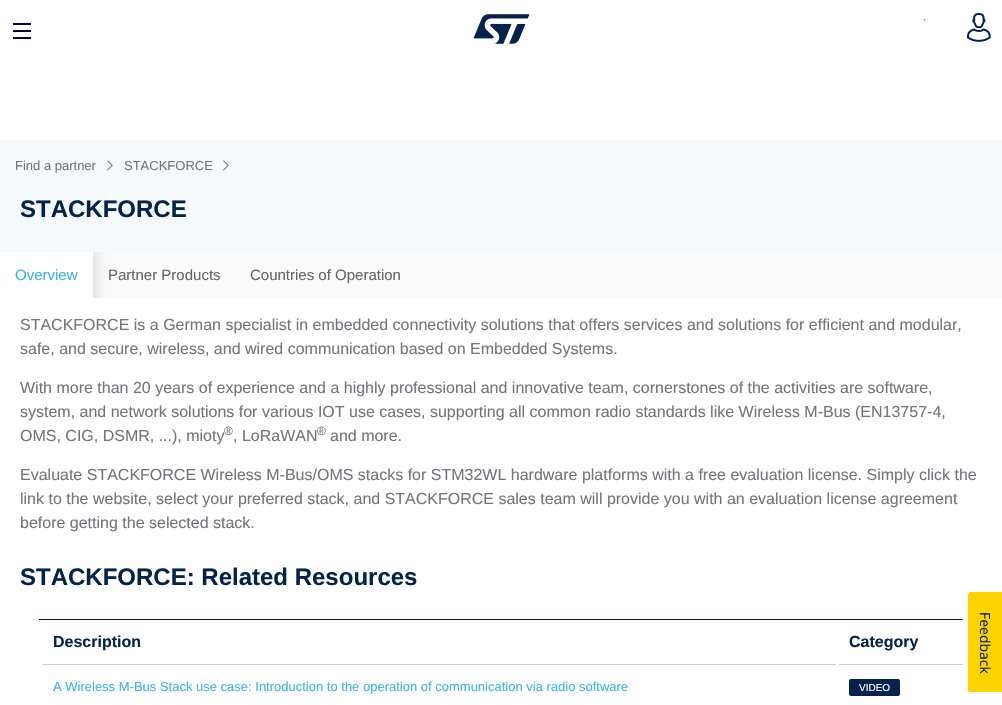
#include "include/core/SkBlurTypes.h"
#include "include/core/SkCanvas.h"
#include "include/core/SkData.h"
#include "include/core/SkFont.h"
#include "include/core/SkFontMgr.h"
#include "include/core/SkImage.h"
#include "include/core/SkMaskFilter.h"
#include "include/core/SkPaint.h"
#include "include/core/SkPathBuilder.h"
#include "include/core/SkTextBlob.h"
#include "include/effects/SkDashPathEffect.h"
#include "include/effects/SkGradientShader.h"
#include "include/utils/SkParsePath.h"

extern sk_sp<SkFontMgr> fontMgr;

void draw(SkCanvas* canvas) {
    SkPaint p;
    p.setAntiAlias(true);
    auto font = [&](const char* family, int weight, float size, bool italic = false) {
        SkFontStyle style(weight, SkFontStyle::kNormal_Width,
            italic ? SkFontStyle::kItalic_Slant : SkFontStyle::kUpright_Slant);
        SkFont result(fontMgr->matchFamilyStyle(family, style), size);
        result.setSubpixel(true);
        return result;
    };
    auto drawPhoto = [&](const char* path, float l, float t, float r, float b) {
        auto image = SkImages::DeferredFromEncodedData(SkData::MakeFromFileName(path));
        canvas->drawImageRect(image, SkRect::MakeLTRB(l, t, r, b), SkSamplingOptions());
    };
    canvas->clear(0xFFFFFFFF);
    drawPhoto("media/1.png", 13, 23, 31, 39);
    drawPhoto("media/2.png", 473, 14, 530, 44);
    drawPhoto("media/3.png", 923, 19, 926, 21);
    drawPhoto("media/4.png", 967, 13, 991, 42);
    p.setColor(0xFFF6F9FB);
    canvas->drawRect(SkRect::MakeLTRB(0, 140, 1002, 252), p);
    auto font1 = font("Liberation Sans", 400, 13);
    p.setColor(0xFF74757C);
    canvas->drawString("Find a partner", 15, 170, font1, p);
    drawPhoto("media/5.png", 107, 160, 113, 171);
    canvas->drawString("STACKFORCE", 124, 170, font1, p);
    drawPhoto("media/5.png", 223, 160, 229, 171);
    auto font2 = font("Liberation Sans", 700, 24);
    p.setColor(0xFF03234B);
    canvas->drawString("STACKFORCE", 20, 217, font2, p);
    p.setColor(0xFFFAFAFA);
    canvas->drawRect(SkRect::MakeLTRB(93, 252, 1002, 298), p);
    canvas->save();
    canvas->clipRect(SkRect::MakeLTRB(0, 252, 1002, 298));
    p.setColor(0x1A000000);
    p.setMaskFilter(SkMaskFilter::MakeBlur(kNormal_SkBlurStyle, 5));
    canvas->drawRect(SkRect::MakeLTRB(-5, 249, 98, 305), p);
    p.setMaskFilter(nullptr);
    canvas->restore();
    p.setColor(0xFFFFFFFF);
    canvas->drawRect(SkRect::MakeLTRB(0, 252, 93, 298), p);
    auto font3 = font("Liberation Sans", 400, 15);
    p.setColor(0xFF3CB4E6);
    canvas->drawString("Overview", 15, 280, font3, p);
    p.setColor(0xFF666666);
    canvas->drawString("Partner Products", 108, 280, font3, p);
    canvas->drawString("Countries of Operation", 250, 280, font3, p);
    auto font4 = font("Liberation Sans", 400, 16);
    p.setColor(0xFF74757C);
    {
        const struct { const char* s; float x, y; } items[] = {
            {"STACKFORCE is a German specialist in embedded connectivity solutions that offers services and solutions for efficient and modular,", 20, 330},
            {"safe, and secure, wireless, and wired communication based on Embedded Systems.", 20, 354},
            {"With more than 20 years of experience and a highly professional and innovative team, cornerstones of the activities are software,", 20, 393},
            {"system, and network solutions for various IOT use cases, supporting all common radio standards like Wireless M-Bus (EN13757-4,", 20, 417},
            {"OMS, CIG, DSMR, ...), mioty", 20, 441},
        };
        for (auto [s, x, y] : items) {
            canvas->drawString(s, x, y, font4, p);
        }
    }
    auto font5 = font("Liberation Sans", 400, 12);
    canvas->drawString("®", 224, 435, font5, p);
    canvas->drawString(", LoRaWAN", 233, 441, font4, p);
    canvas->drawString("®", 317, 435, font5, p);
    {
        const struct { const char* s; float x, y; } items[] = {
            {"and more.", 330, 441},
            {"Evaluate STACKFORCE Wireless M-Bus/OMS stacks for STM32WL hardware platforms with a free evaluation license. Simply click the", 20, 480},
            {"link to the website, select your preferred stack, and STACKFORCE sales team will provide you with an evaluation license agreement", 20, 504},
            {"before getting the selected stack.", 20, 528},
        };
        for (auto [s, x, y] : items) {
            canvas->drawString(s, x, y, font4, p);
        }
    }
    p.setColor(0xFF03234B);
    canvas->drawString("STACKFORCE: Related Resources", 20, 585, font2, p);
    p.setColor(0xFF002052);
    canvas->drawRect(SkRect::MakeLTRB(39, 619, 963, 620), p);
    p.setColor(0xFFCCCCCC);
    canvas->drawRect(SkRect::MakeLTRB(39, 664, 963, 665), p);
    auto font6 = font("Liberation Sans", 700, 16);
    p.setColor(0xFF03234B);
    canvas->drawString("Description", 53, 647, font6, p);
    p.setColor(0xFFFFFFFF);
    canvas->drawRect(SkRect::MakeLTRB(39, 664, 42, 665), p);
    p.setColor(0xFF03234B);
    canvas->drawString("Category", 849, 647, font6, p);
    p.setColor(0xFFFFFFFF);
    canvas->drawRect(SkRect::MakeLTRB(836, 664, 839, 665), p);
    p.setColor(0xFF3CB4E6);
    canvas->drawString("A Wireless M-Bus Stack use case: Introduction to the operation of communication via radio software", 53, 691, font1, p);
    p.setColor(0xFF03234B);
    canvas->drawRoundRect(SkRect::MakeLTRB(849, 679, 900, 696), 2, 2, p);
    auto font7 = font("Liberation Sans", 400, 10);
    p.setColor(0xFFFFFFFF);
    canvas->drawString("VIDEO", 859, 691, font7, p);
    p.setColor(0xFFFFD200);
    canvas->drawPath(SkPathBuilder().moveTo(1002, 592).lineTo(1002, 692).lineTo(970, 692).cubicTo(969, 692, 968, 691, 968, 690).lineTo(968, 596).cubicTo(968, 594, 969, 592, 970, 592).close().detach(), p);
    auto font8 = font("Open Sans", 400, 14);
    p.setColor(0xFF03234B);
    canvas->save();
    canvas->rotate(90, 980, 612);
    canvas->drawString("Feedback", 980, 612, font8, p);
    canvas->restore();
}
